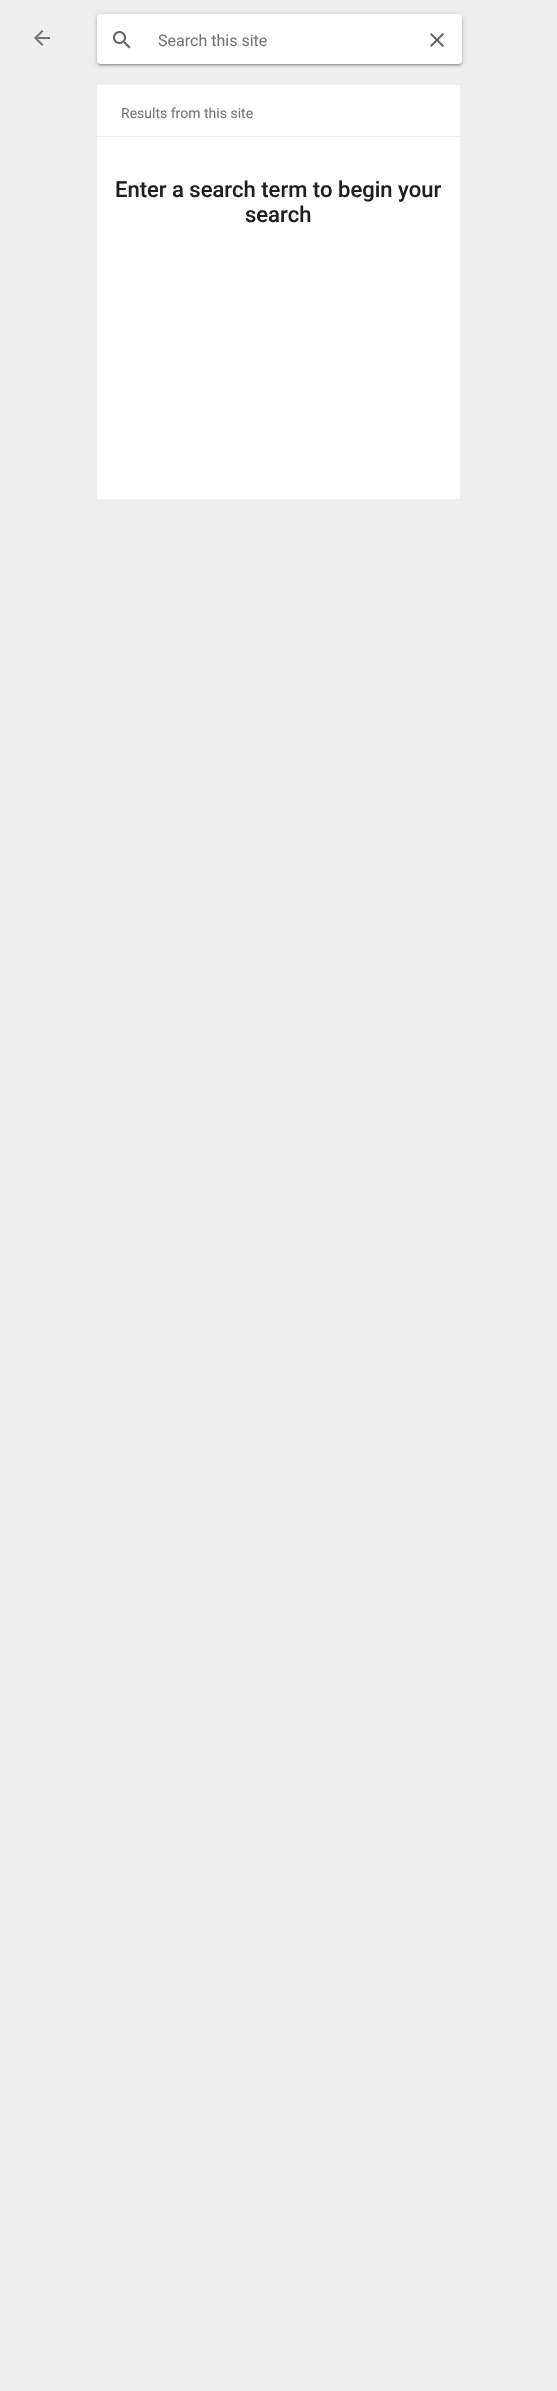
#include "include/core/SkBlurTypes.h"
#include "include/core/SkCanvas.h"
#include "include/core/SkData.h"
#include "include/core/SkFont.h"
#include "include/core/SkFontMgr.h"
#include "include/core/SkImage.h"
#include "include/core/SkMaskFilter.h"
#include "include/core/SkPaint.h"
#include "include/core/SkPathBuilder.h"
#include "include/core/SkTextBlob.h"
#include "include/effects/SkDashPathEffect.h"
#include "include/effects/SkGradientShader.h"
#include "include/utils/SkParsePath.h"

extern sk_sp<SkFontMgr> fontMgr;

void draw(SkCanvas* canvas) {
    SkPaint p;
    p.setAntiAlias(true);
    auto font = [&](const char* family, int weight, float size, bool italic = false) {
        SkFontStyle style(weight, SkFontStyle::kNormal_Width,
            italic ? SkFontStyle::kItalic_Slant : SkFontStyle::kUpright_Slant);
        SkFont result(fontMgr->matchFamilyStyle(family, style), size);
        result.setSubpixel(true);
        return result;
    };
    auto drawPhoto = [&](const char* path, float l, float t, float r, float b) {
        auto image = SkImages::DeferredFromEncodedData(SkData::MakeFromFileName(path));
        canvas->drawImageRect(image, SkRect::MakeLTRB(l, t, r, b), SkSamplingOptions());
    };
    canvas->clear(0xFFEEEEEE);
    drawPhoto("media/1.png", 34, 30, 50, 46);
    p.setColor(0x33000000);
    p.setMaskFilter(SkMaskFilter::MakeBlur(kNormal_SkBlurStyle, 2.5f));
    canvas->drawRoundRect(SkRect::MakeLTRB(97, 15, 462, 65), 4, 4, p);
    p.setMaskFilter(nullptr);
    p.setColor(0x1F000000);
    p.setMaskFilter(SkMaskFilter::MakeBlur(kNormal_SkBlurStyle, 0.5f));
    canvas->drawRoundRect(SkRect::MakeLTRB(99, 19, 460, 65), 2, 2, p);
    p.setMaskFilter(nullptr);
    p.setColor(0x24000000);
    p.setMaskFilter(SkMaskFilter::MakeBlur(kNormal_SkBlurStyle, 1));
    canvas->drawRoundRect(SkRect::MakeLTRB(97, 16, 462, 66), 4, 4, p);
    p.setMaskFilter(nullptr);
    p.setColor(0xFFFFFFFF);
    canvas->drawRoundRect(SkRect::MakeLTRB(97, 14, 462, 64), 4, 4, p);
    drawPhoto("media/2.png", 113, 31, 131, 49);
    auto font1 = font("Roboto", 400, 16);
    p.setColor(0xFF757575);
    canvas->drawString("Search this site", 158, 46, font1, p);
    drawPhoto("media/3.png", 430, 33, 444, 47);
    p.setColor(0xFFFFFFFF);
    canvas->drawRect(SkRect::MakeLTRB(97, 85, 460, 136), p);
    auto font2 = font("Roboto", 400, 14);
    p.setColor(0xFF757575);
    canvas->drawString("Results from this site", 121, 118, font2, p);
    p.setColor(0xFFFFFFFF);
    canvas->drawRect(SkRect::MakeLTRB(97, 137, 460, 499), p);
    auto font3 = font("Roboto", 500, 22);
    p.setColor(0xFF1F1F1F);
    canvas->drawString("Enter a search term to begin your", 115, 197, font3, p);
    canvas->drawString("search", 245, 222, font3, p);
}
